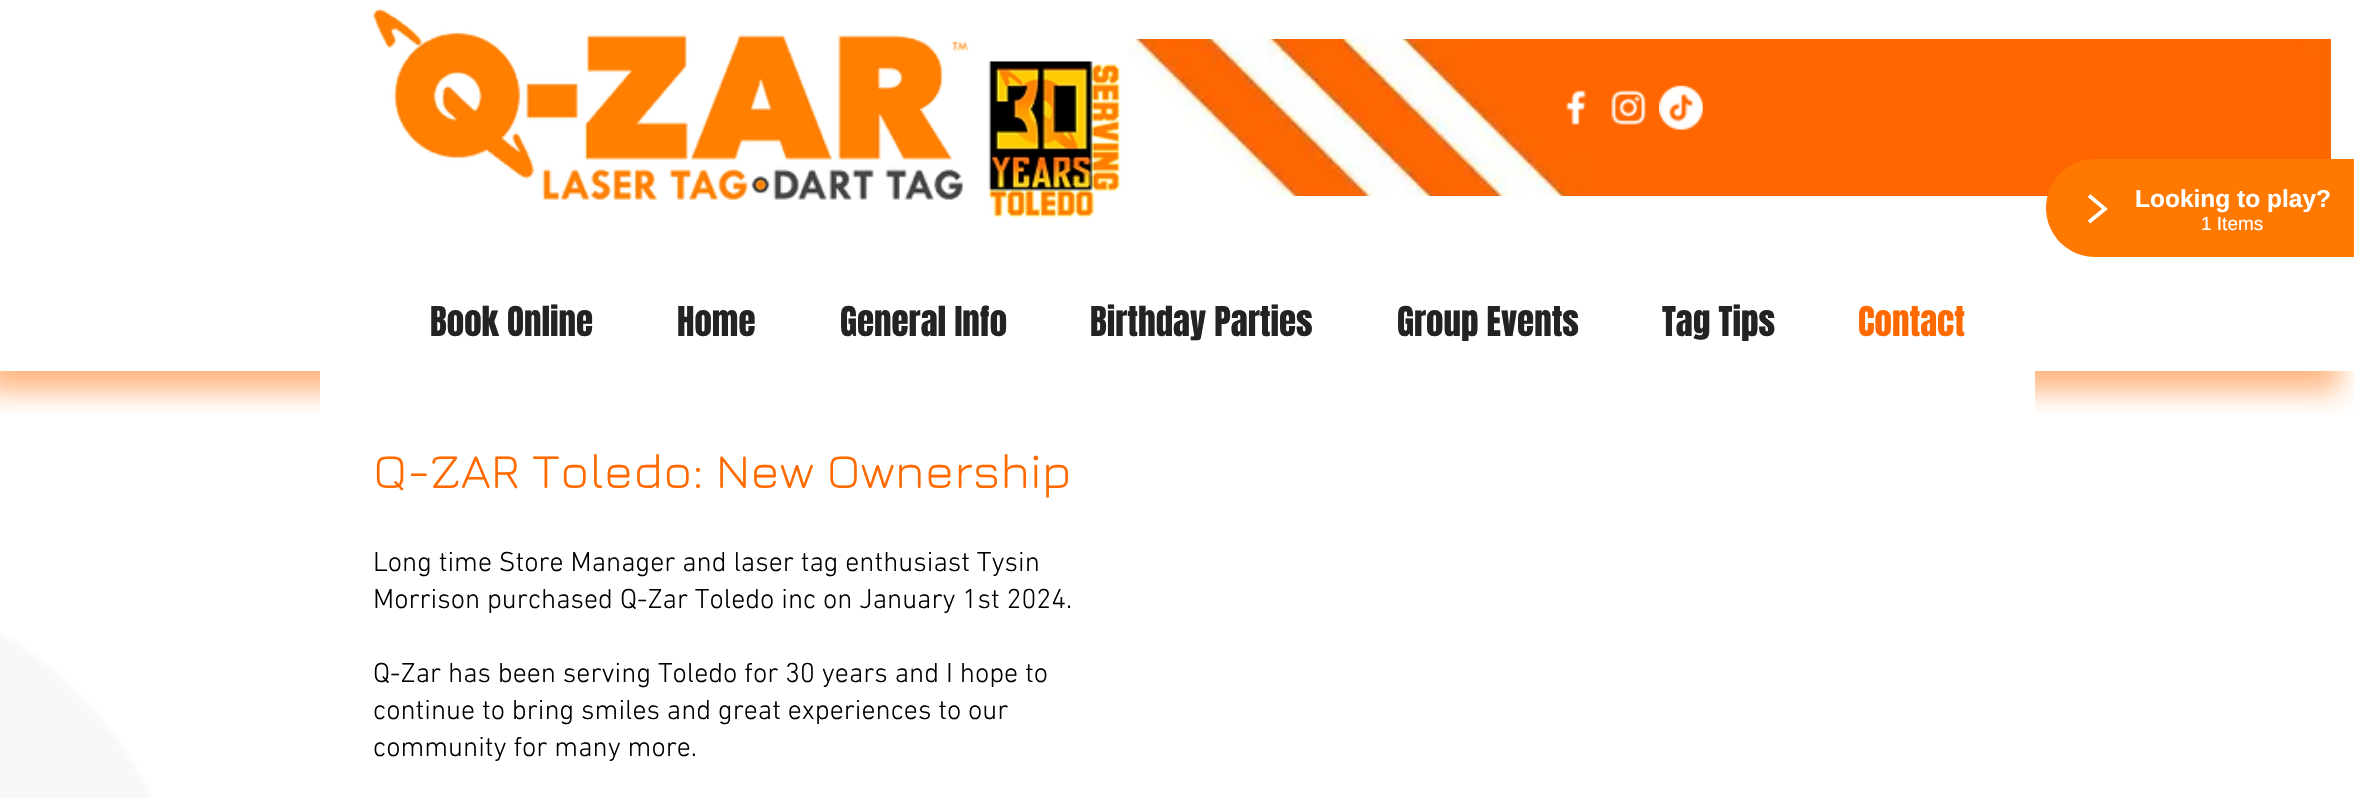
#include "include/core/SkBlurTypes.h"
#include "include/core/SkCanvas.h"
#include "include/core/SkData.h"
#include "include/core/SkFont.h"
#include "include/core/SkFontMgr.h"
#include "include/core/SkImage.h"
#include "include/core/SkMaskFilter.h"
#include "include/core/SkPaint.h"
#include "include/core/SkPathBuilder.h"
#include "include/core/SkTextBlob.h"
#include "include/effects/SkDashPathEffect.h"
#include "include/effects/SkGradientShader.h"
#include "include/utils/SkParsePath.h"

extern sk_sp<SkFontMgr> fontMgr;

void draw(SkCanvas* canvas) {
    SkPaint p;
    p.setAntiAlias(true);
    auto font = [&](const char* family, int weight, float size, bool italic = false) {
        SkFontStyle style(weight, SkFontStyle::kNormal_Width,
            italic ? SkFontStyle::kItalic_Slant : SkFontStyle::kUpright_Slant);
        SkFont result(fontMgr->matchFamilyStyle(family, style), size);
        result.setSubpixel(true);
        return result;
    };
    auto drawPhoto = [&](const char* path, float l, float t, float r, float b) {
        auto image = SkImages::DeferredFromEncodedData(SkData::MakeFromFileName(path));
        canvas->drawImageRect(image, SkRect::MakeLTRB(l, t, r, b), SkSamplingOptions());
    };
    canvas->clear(0xFFFFFFFF);
    canvas->save();
    canvas->clipRect(SkRect::MakeLTRB(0, 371, 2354, 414));
    p.setColor(0x7AFF6A00);
    p.setMaskFilter(SkMaskFilter::MakeBlur(kNormal_SkBlurStyle, 13));
    canvas->drawRect(SkRect::MakeLTRB(-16, 21, 2340, 392), p);
    p.setMaskFilter(nullptr);
    canvas->restore();
    drawPhoto("media/4.png", 1129, 39, 2331, 196);
    p.setColor(0xFFFF7900);
    canvas->drawPath(SkPathBuilder().moveTo(2095, 159).lineTo(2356, 159).lineTo(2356, 257).lineTo(2095, 257).cubicTo(2068, 257, 2046, 235, 2046, 208).cubicTo(2046, 181, 2068, 159, 2095, 159).close().detach(), p);
    p.setStyle(SkPaint::kStroke_Style);
    p.setStrokeWidth(3.6f);
    p.setColor(0xFFFFFFFF);
    canvas->drawPath(SkPathBuilder().moveTo(2089, 222).lineTo(2105, 209).lineTo(2089, 195.5f).detach(), p);
    auto font1 = font("Liberation Sans", 700, 24.5f);
    p.setStyle(SkPaint::kFill_Style);
    canvas->drawString("Looking to play?", 2135, 207, font1, p);
    auto font2 = font("Liberation Sans", 400, 19);
    canvas->drawString("1 Items", 2201, 230, font2, p);
    drawPhoto("media/1.png", 988, 61, 1121, 218);
    drawPhoto("media/2.png", 0, 633, 152, 798);
    drawPhoto("media/3.png", 372, 8, 969, 201);
    drawPhoto("media/5.png", 1566, 90, 1586, 125);
    drawPhoto("media/6.png", 1611, 90, 1646, 125);
    drawPhoto("media/7.png", 1659, 85, 1703, 130);
    auto font3 = font("Anton", 400, 35);
    p.setColor(0xFF242323);
    {
        const struct { const char* s; float x, y; } items[] = {
            {"Book Online", 430, 336},
            {"Home", 677, 336},
            {"General Info", 840, 336},
            {"Birthday Parties", 1090, 336},
            {"Group Events", 1397, 336},
            {"Tag Tips", 1662, 336},
        };
        for (auto [s, x, y] : items) {
            canvas->drawString(s, x, y, font3, p);
        }
    }
    p.setColor(0xFFFF6A00);
    canvas->drawString("Contact", 1858, 336, font3, p);
    p.setColor(0xFFFFFFFF);
    canvas->drawRect(SkRect::MakeLTRB(320, 371, 2035, 418), p);
    auto font4 = font("Jura", 400, 49);
    p.setColor(0xFFFF6A00);
    canvas->drawString("Q-ZAR Toledo: New Ownership", 373, 488, font4, p);
    auto font5 = font("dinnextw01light", 300, 28);
    p.setColor(0xFF000000);
    {
        const struct { const char* s; float x, y; } items[] = {
            {"Long time Store Manager and laser tag enthusiast Tysin", 373, 571},
            {"Morrison purchased Q-Zar Toledo inc on January 1st 2024.", 373, 608},
            {"Q-Zar has been serving Toledo for 30 years and I hope to", 373, 682},
            {"continue to bring smiles and great experiences to our", 373, 719},
            {"community for many more.", 373, 756},
        };
        for (auto [s, x, y] : items) {
            canvas->drawString(s, x, y, font5, p);
        }
    }
}
